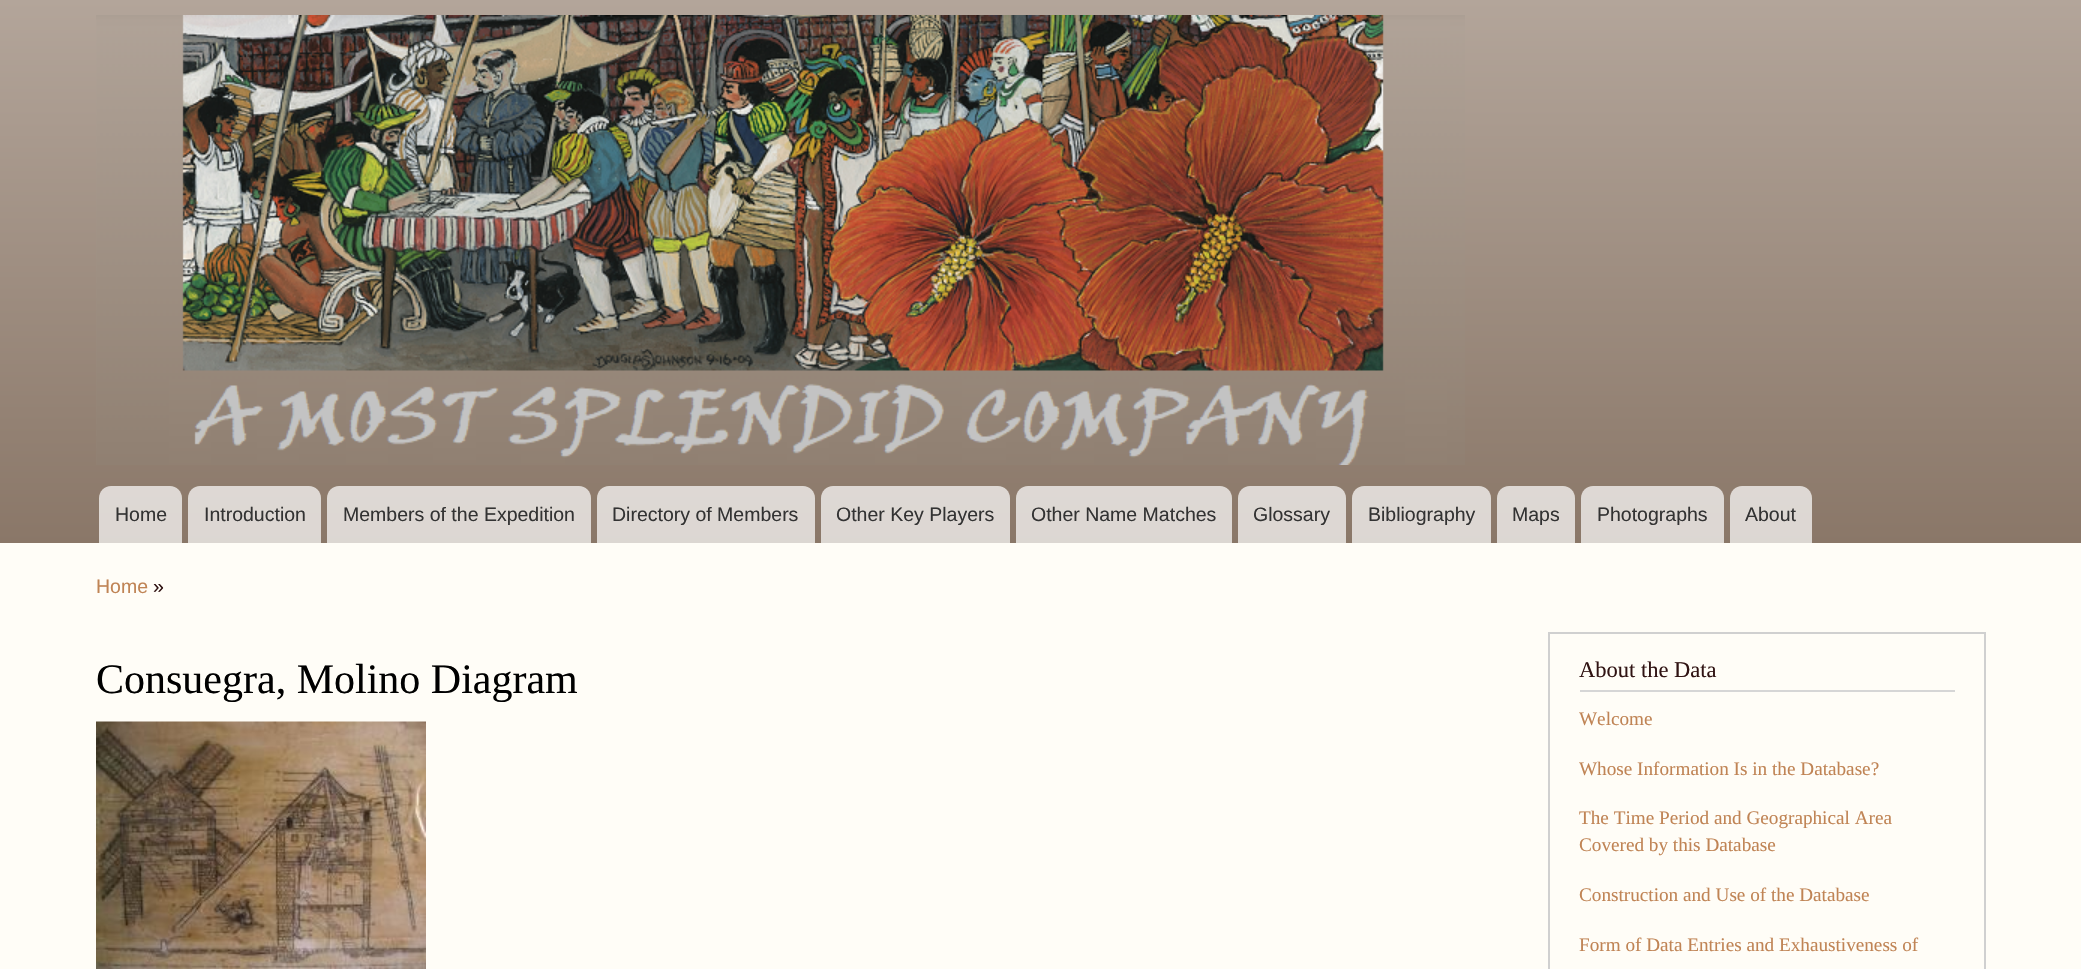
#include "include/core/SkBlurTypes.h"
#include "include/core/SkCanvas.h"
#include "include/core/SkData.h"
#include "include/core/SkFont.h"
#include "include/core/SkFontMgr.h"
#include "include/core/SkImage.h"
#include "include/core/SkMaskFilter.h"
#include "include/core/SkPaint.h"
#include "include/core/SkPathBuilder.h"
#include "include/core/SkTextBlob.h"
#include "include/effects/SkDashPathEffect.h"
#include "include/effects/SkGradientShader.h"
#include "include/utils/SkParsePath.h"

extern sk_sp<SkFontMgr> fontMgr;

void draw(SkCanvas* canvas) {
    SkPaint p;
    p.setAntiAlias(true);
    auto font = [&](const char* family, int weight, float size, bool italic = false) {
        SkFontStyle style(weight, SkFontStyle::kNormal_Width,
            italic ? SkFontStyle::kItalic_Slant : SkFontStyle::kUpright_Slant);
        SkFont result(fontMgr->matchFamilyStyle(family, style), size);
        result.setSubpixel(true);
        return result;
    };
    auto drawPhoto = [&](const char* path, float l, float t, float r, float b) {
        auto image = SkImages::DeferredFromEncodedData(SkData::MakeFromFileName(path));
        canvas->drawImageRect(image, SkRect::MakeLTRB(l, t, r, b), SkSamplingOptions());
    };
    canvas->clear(0xFFFFFDF7);
    {
        const SkColor colors[] = {0xFFB3A59A, 0xFF8A7768};
        const float stops[] = {0, 1};
        const SkPoint ends[] = {{1041, 0}, {1041, 543}};
        p.setShader(SkGradientShader::MakeLinear(ends, colors, stops, 2, SkTileMode::kClamp));
        p.setAlpha(255);
    }
    canvas->drawRect(SkRect::MakeLTRB(0, 0, 2081, 543), p);
    drawPhoto("media/1.png", 96, 15, 1465, 465);
    p.setShader(nullptr);
    p.setColor(0xB3FFFFFF);
    canvas->drawPath(SkPathBuilder().moveTo(111, 486).lineTo(170, 486).cubicTo(176.5f, 486, 182, 491.5f, 182, 498).lineTo(182, 543).lineTo(99, 543).lineTo(99, 498).cubicTo(99, 491.5f, 104.5f, 486, 111, 486).close().detach(), p);
    auto font1 = font("Liberation Sans", 400, 19.5f);
    p.setColor(0xFF333333);
    canvas->drawString("Home", 115, 521, font1, p);
    p.setColor(0xB3FFFFFF);
    canvas->drawPath(SkPathBuilder().moveTo(200, 486).lineTo(309, 486).cubicTo(315.5f, 486, 321, 491.5f, 321, 498).lineTo(321, 543).lineTo(188, 543).lineTo(188, 498).cubicTo(188, 491.5f, 193.5f, 486, 200, 486).close().detach(), p);
    p.setColor(0xFF333333);
    canvas->drawString("Introduction", 204, 521, font1, p);
    p.setColor(0xB3FFFFFF);
    canvas->drawPath(SkPathBuilder().moveTo(339, 486).lineTo(579, 486).cubicTo(585.5f, 486, 591, 491.5f, 591, 498).lineTo(591, 543).lineTo(327, 543).lineTo(327, 498).cubicTo(327, 491.5f, 332.5f, 486, 339, 486).close().detach(), p);
    p.setColor(0xFF333333);
    canvas->drawString("Members of the Expedition", 343, 521, font1, p);
    p.setColor(0xB3FFFFFF);
    canvas->drawPath(SkPathBuilder().moveTo(609, 486).lineTo(803, 486).cubicTo(809.5f, 486, 815, 491.5f, 815, 498).lineTo(815, 543).lineTo(597, 543).lineTo(597, 498).cubicTo(597, 491.5f, 602.5f, 486, 609, 486).close().detach(), p);
    p.setColor(0xFF333333);
    canvas->drawString("Directory of Members", 612, 521, font1, p);
    p.setColor(0xB3FFFFFF);
    canvas->drawPath(SkPathBuilder().moveTo(833, 486).lineTo(998, 486).cubicTo(1004.5f, 486, 1010, 491.5f, 1010, 498).lineTo(1010, 543).lineTo(821, 543).lineTo(821, 498).cubicTo(821, 491.5f, 826.5f, 486, 833, 486).close().detach(), p);
    p.setColor(0xFF333333);
    canvas->drawString("Other Key Players", 836, 521, font1, p);
    p.setColor(0xB3FFFFFF);
    canvas->drawPath(SkPathBuilder().moveTo(1028, 486).lineTo(1220, 486).cubicTo(1226.5f, 486, 1232, 491.5f, 1232, 498).lineTo(1232, 543).lineTo(1016, 543).lineTo(1016, 498).cubicTo(1016, 491.5f, 1021.5f, 486, 1028, 486).close().detach(), p);
    p.setColor(0xFF333333);
    canvas->drawString("Other Name Matches", 1031, 521, font1, p);
    p.setColor(0xB3FFFFFF);
    canvas->drawPath(SkPathBuilder().moveTo(1250, 486).lineTo(1334, 486).cubicTo(1340.5f, 486, 1346, 491.5f, 1346, 498).lineTo(1346, 543).lineTo(1238, 543).lineTo(1238, 498).cubicTo(1238, 491.5f, 1243.5f, 486, 1250, 486).close().detach(), p);
    p.setColor(0xFF333333);
    canvas->drawString("Glossary", 1253, 521, font1, p);
    p.setColor(0xB3FFFFFF);
    canvas->drawPath(SkPathBuilder().moveTo(1364, 486).lineTo(1479, 486).cubicTo(1485.5f, 486, 1491, 491.5f, 1491, 498).lineTo(1491, 543).lineTo(1352, 543).lineTo(1352, 498).cubicTo(1352, 491.5f, 1357.5f, 486, 1364, 486).close().detach(), p);
    p.setColor(0xFF333333);
    canvas->drawString("Bibliography", 1368, 521, font1, p);
    p.setColor(0xB3FFFFFF);
    canvas->drawPath(SkPathBuilder().moveTo(1509, 486).lineTo(1563, 486).cubicTo(1569.5f, 486, 1575, 491.5f, 1575, 498).lineTo(1575, 543).lineTo(1497, 543).lineTo(1497, 498).cubicTo(1497, 491.5f, 1502.5f, 486, 1509, 486).close().detach(), p);
    p.setColor(0xFF333333);
    canvas->drawString("Maps", 1512, 521, font1, p);
    p.setColor(0xB3FFFFFF);
    canvas->drawPath(SkPathBuilder().moveTo(1593, 486).lineTo(1712, 486).cubicTo(1718.5f, 486, 1724, 491.5f, 1724, 498).lineTo(1724, 543).lineTo(1581, 543).lineTo(1581, 498).cubicTo(1581, 491.5f, 1586.5f, 486, 1593, 486).close().detach(), p);
    p.setColor(0xFF333333);
    canvas->drawString("Photographs", 1597, 521, font1, p);
    p.setColor(0xB3FFFFFF);
    canvas->drawPath(SkPathBuilder().moveTo(1742, 486).lineTo(1800, 486).cubicTo(1806.5f, 486, 1812, 491.5f, 1812, 498).lineTo(1812, 543).lineTo(1730, 543).lineTo(1730, 498).cubicTo(1730, 491.5f, 1735.5f, 486, 1742, 486).close().detach(), p);
    p.setColor(0xFF333333);
    canvas->drawString("About", 1745, 521, font1, p);
    p.setColor(0xFFC08455);
    canvas->drawString("Home", 96, 593, font1, p);
    p.setColor(0xFF301313);
    canvas->drawString("»", 153, 593, font1, p);
    auto font2 = font("Liberation Serif", 400, 42);
    p.setColor(0xFF000000);
    canvas->drawString("Consuegra, Molino Diagram", 96, 693, font2, p);
    drawPhoto("media/2.png", 96, 721, 426, 969);
    p.setStyle(SkPaint::kStroke_Style);
    p.setStrokeWidth(2);
    p.setColor(0xFFD0D0D0);
    canvas->drawRect(SkRect::MakeLTRB(1549, 633, 1985, 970), p);
    p.setStyle(SkPaint::kFill_Style);
    p.setColor(0xFFD6D6D6);
    canvas->drawRect(SkRect::MakeLTRB(1580, 690, 1955, 692), p);
    auto font3 = font("Liberation Serif", 400, 22.5f);
    p.setColor(0xFF301313);
    canvas->drawString("About the Data", 1579, 677, font3, p);
    auto font4 = font("Liberation Serif", 400, 19.2f);
    p.setColor(0xFFC08455);
    {
        const struct { const char* s; float x, y; } items[] = {
            {"Welcome", 1579, 725},
            {"Whose Information Is in the Database?", 1579, 775},
            {"The Time Period and Geographical Area", 1579, 824},
            {"Covered by this Database", 1579, 851},
            {"Construction and Use of the Database", 1579, 901},
            {"Form of Data Entries and Exhaustiveness of", 1579, 951},
        };
        for (auto [s, x, y] : items) {
            canvas->drawString(s, x, y, font4, p);
        }
    }
}
